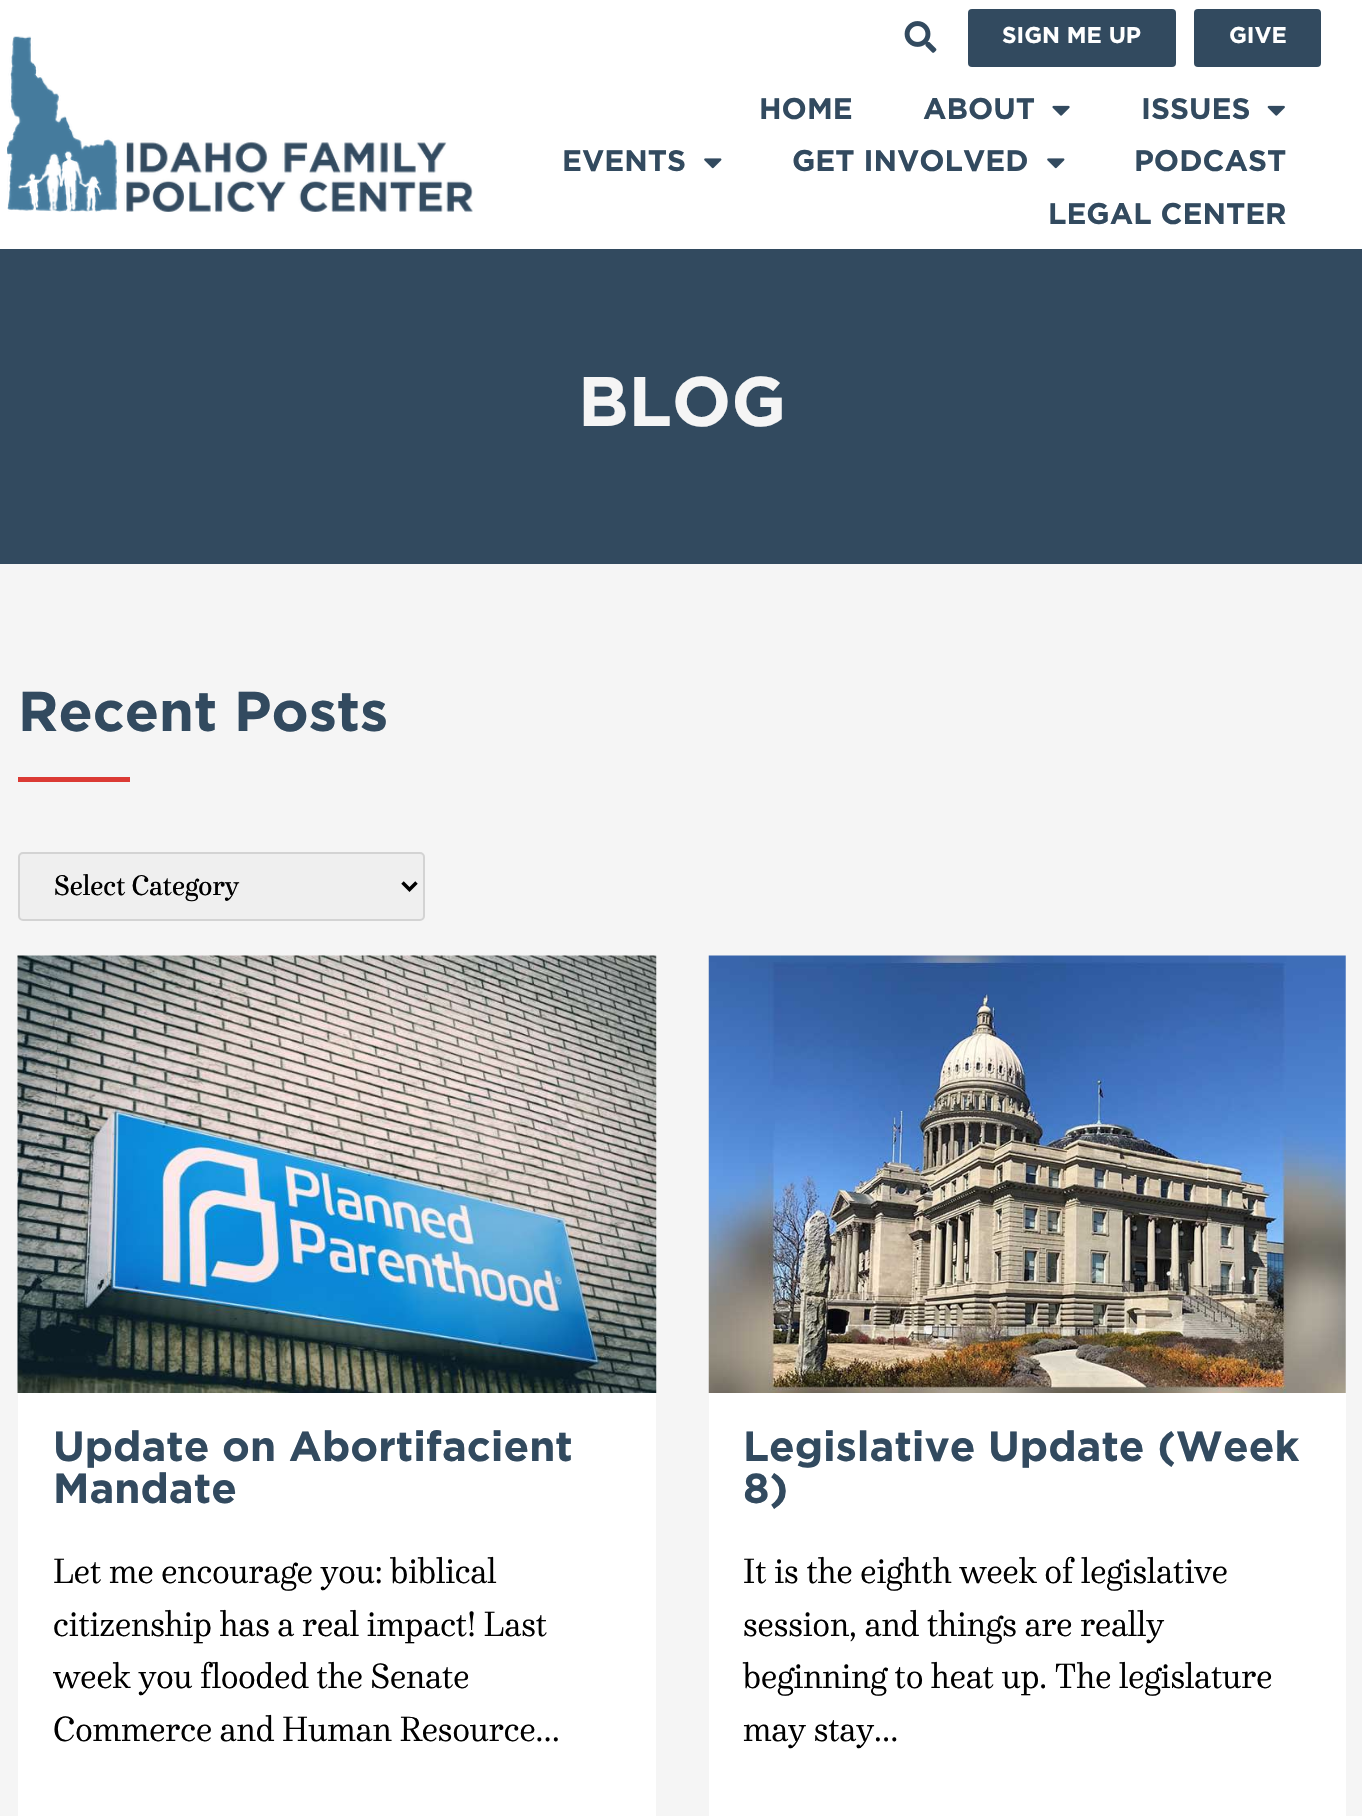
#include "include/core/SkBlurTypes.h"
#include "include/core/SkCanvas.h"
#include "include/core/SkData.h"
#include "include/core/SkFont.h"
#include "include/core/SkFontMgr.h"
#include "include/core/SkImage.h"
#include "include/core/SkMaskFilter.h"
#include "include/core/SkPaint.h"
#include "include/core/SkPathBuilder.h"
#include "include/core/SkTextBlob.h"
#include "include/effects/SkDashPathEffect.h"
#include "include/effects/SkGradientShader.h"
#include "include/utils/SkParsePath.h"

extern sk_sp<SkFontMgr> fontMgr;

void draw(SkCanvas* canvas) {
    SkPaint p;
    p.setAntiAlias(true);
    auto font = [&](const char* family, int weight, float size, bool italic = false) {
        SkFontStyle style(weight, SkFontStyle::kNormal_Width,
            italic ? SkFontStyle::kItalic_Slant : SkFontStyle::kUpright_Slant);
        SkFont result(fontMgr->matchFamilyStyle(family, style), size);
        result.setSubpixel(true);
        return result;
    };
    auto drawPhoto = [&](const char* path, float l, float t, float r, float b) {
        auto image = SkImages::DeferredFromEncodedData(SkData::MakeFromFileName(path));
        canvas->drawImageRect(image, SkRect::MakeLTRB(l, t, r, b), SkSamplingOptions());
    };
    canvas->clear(0xFFF5F5F5);
    p.setColor(0xFFFFFFFF);
    canvas->drawRect(SkRect::MakeLTRB(0, 0, 1362, 249), p);
    drawPhoto("media/1.png", 7, 36, 473, 212);
    drawPhoto("media/2.png", 904, 21, 937, 53);
    p.setColor(0xFF324A5F);
    canvas->drawRoundRect(SkRect::MakeLTRB(968, 9, 1176, 67), 4, 4, p);
    auto font1 = font("Gotham", 700, 22.75f);
    p.setColor(0xFFFFFFFF);
    canvas->drawString("SIGN ME UP", 1002, 43, font1, p);
    p.setColor(0xFF324A5F);
    canvas->drawRoundRect(SkRect::MakeLTRB(1194, 9, 1321, 67), 4, 4, p);
    p.setColor(0xFFFFFFFF);
    canvas->drawString("GIVE", 1229, 43, font1, p);
    auto font2 = font("Gotham", 700, 29.75f);
    p.setColor(0xFF324A5F);
    canvas->drawString("HOME", 759, 119, font2, p);
    canvas->drawString("ABOUT", 923, 119, font2, p);
    drawPhoto("media/3.png", 1052, 105, 1070, 116);
    canvas->drawString("ISSUES", 1141, 119, font2, p);
    drawPhoto("media/4.png", 1267, 105, 1285, 116);
    canvas->drawString("EVENTS", 562, 171, font2, p);
    drawPhoto("media/5.png", 704, 158, 722, 169);
    canvas->drawString("GET INVOLVED", 792, 171, font2, p);
    drawPhoto("media/5.png", 1047, 158, 1065, 169);
    canvas->drawString("PODCAST", 1134, 171, font2, p);
    canvas->drawString("LEGAL CENTER", 1048, 224, font2, p);
    canvas->drawRect(SkRect::MakeLTRB(0, 249, 1362, 564), p);
    auto font3 = font("Gotham", 700, 70);
    p.setColor(0xFFF5F5F5);
    canvas->drawString("BLOG", 578, 426, font3, p);
    auto font4 = font("Gotham", 700, 56);
    p.setColor(0xFF324A5F);
    canvas->drawString("Recent Posts", 18, 731, font4, p);
    p.setColor(0xFFDB3A34);
    canvas->drawRect(SkRect::MakeLTRB(18, 777, 130, 782), p);
    p.setColor(0xFFEFEFEF);
    canvas->drawRoundRect(SkRect::MakeLTRB(19, 853, 424, 920), 4, 4, p);
    p.setStyle(SkPaint::kStroke_Style);
    p.setStrokeWidth(2);
    p.setColor(0xFFD3D3D3);
    canvas->drawRoundRect(SkRect::MakeLTRB(19, 853, 424, 920), 4, 4, p);
    p.setStrokeWidth(3.5f);
    p.setColor(0xFF000000);
    canvas->drawPath(SkPathBuilder().moveTo(402.5f, 882.5f).lineTo(409.5f, 889.5f).lineTo(416.5f, 882.5f).detach(), p);
    auto font5 = font("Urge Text", 600, 28);
    p.setStyle(SkPaint::kFill_Style);
    canvas->drawString("Select Category", 54, 895, font5, p);
    p.setColor(0xFFFFFFFF);
    canvas->drawRect(SkRect::MakeLTRB(18, 1393, 656, 1816), p);
    drawPhoto("media/6.png", 17, 955, 657, 1393);
    auto font6 = font("Gotham", 700, 42);
    p.setColor(0xFF324A5F);
    canvas->drawString("Update on Abortifacient", 53, 1461, font6, p);
    canvas->drawString("Mandate", 53, 1503, font6, p);
    auto font7 = font("Urge Text", 400, 35);
    p.setColor(0xFF000000);
    {
        const struct { const char* s; float x, y; } items[] = {
            {"Let me encourage you: biblical", 53, 1583},
            {"citizenship has a real impact! Last", 53, 1636},
            {"week you flooded the Senate", 53, 1688},
            {"Commerce and Human Resource…", 53, 1741},
        };
        for (auto [s, x, y] : items) {
            canvas->drawString(s, x, y, font7, p);
        }
    }
    p.setColor(0xFFFFFFFF);
    canvas->drawRect(SkRect::MakeLTRB(709, 956, 1346, 1816), p);
    drawPhoto("media/7.png", 708, 955, 1346, 1393);
    p.setColor(0xFF324A5F);
    canvas->drawString("Legislative Update (Week", 743, 1461, font6, p);
    canvas->drawString("8)", 743, 1503, font6, p);
    p.setColor(0xFF000000);
    {
        const struct { const char* s; float x, y; } items[] = {
            {"It is the eighth week of legislative", 743, 1583},
            {"session, and things are really", 743, 1636},
            {"beginning to heat up. The legislature", 743, 1688},
            {"may stay…", 743, 1741},
        };
        for (auto [s, x, y] : items) {
            canvas->drawString(s, x, y, font7, p);
        }
    }
}
